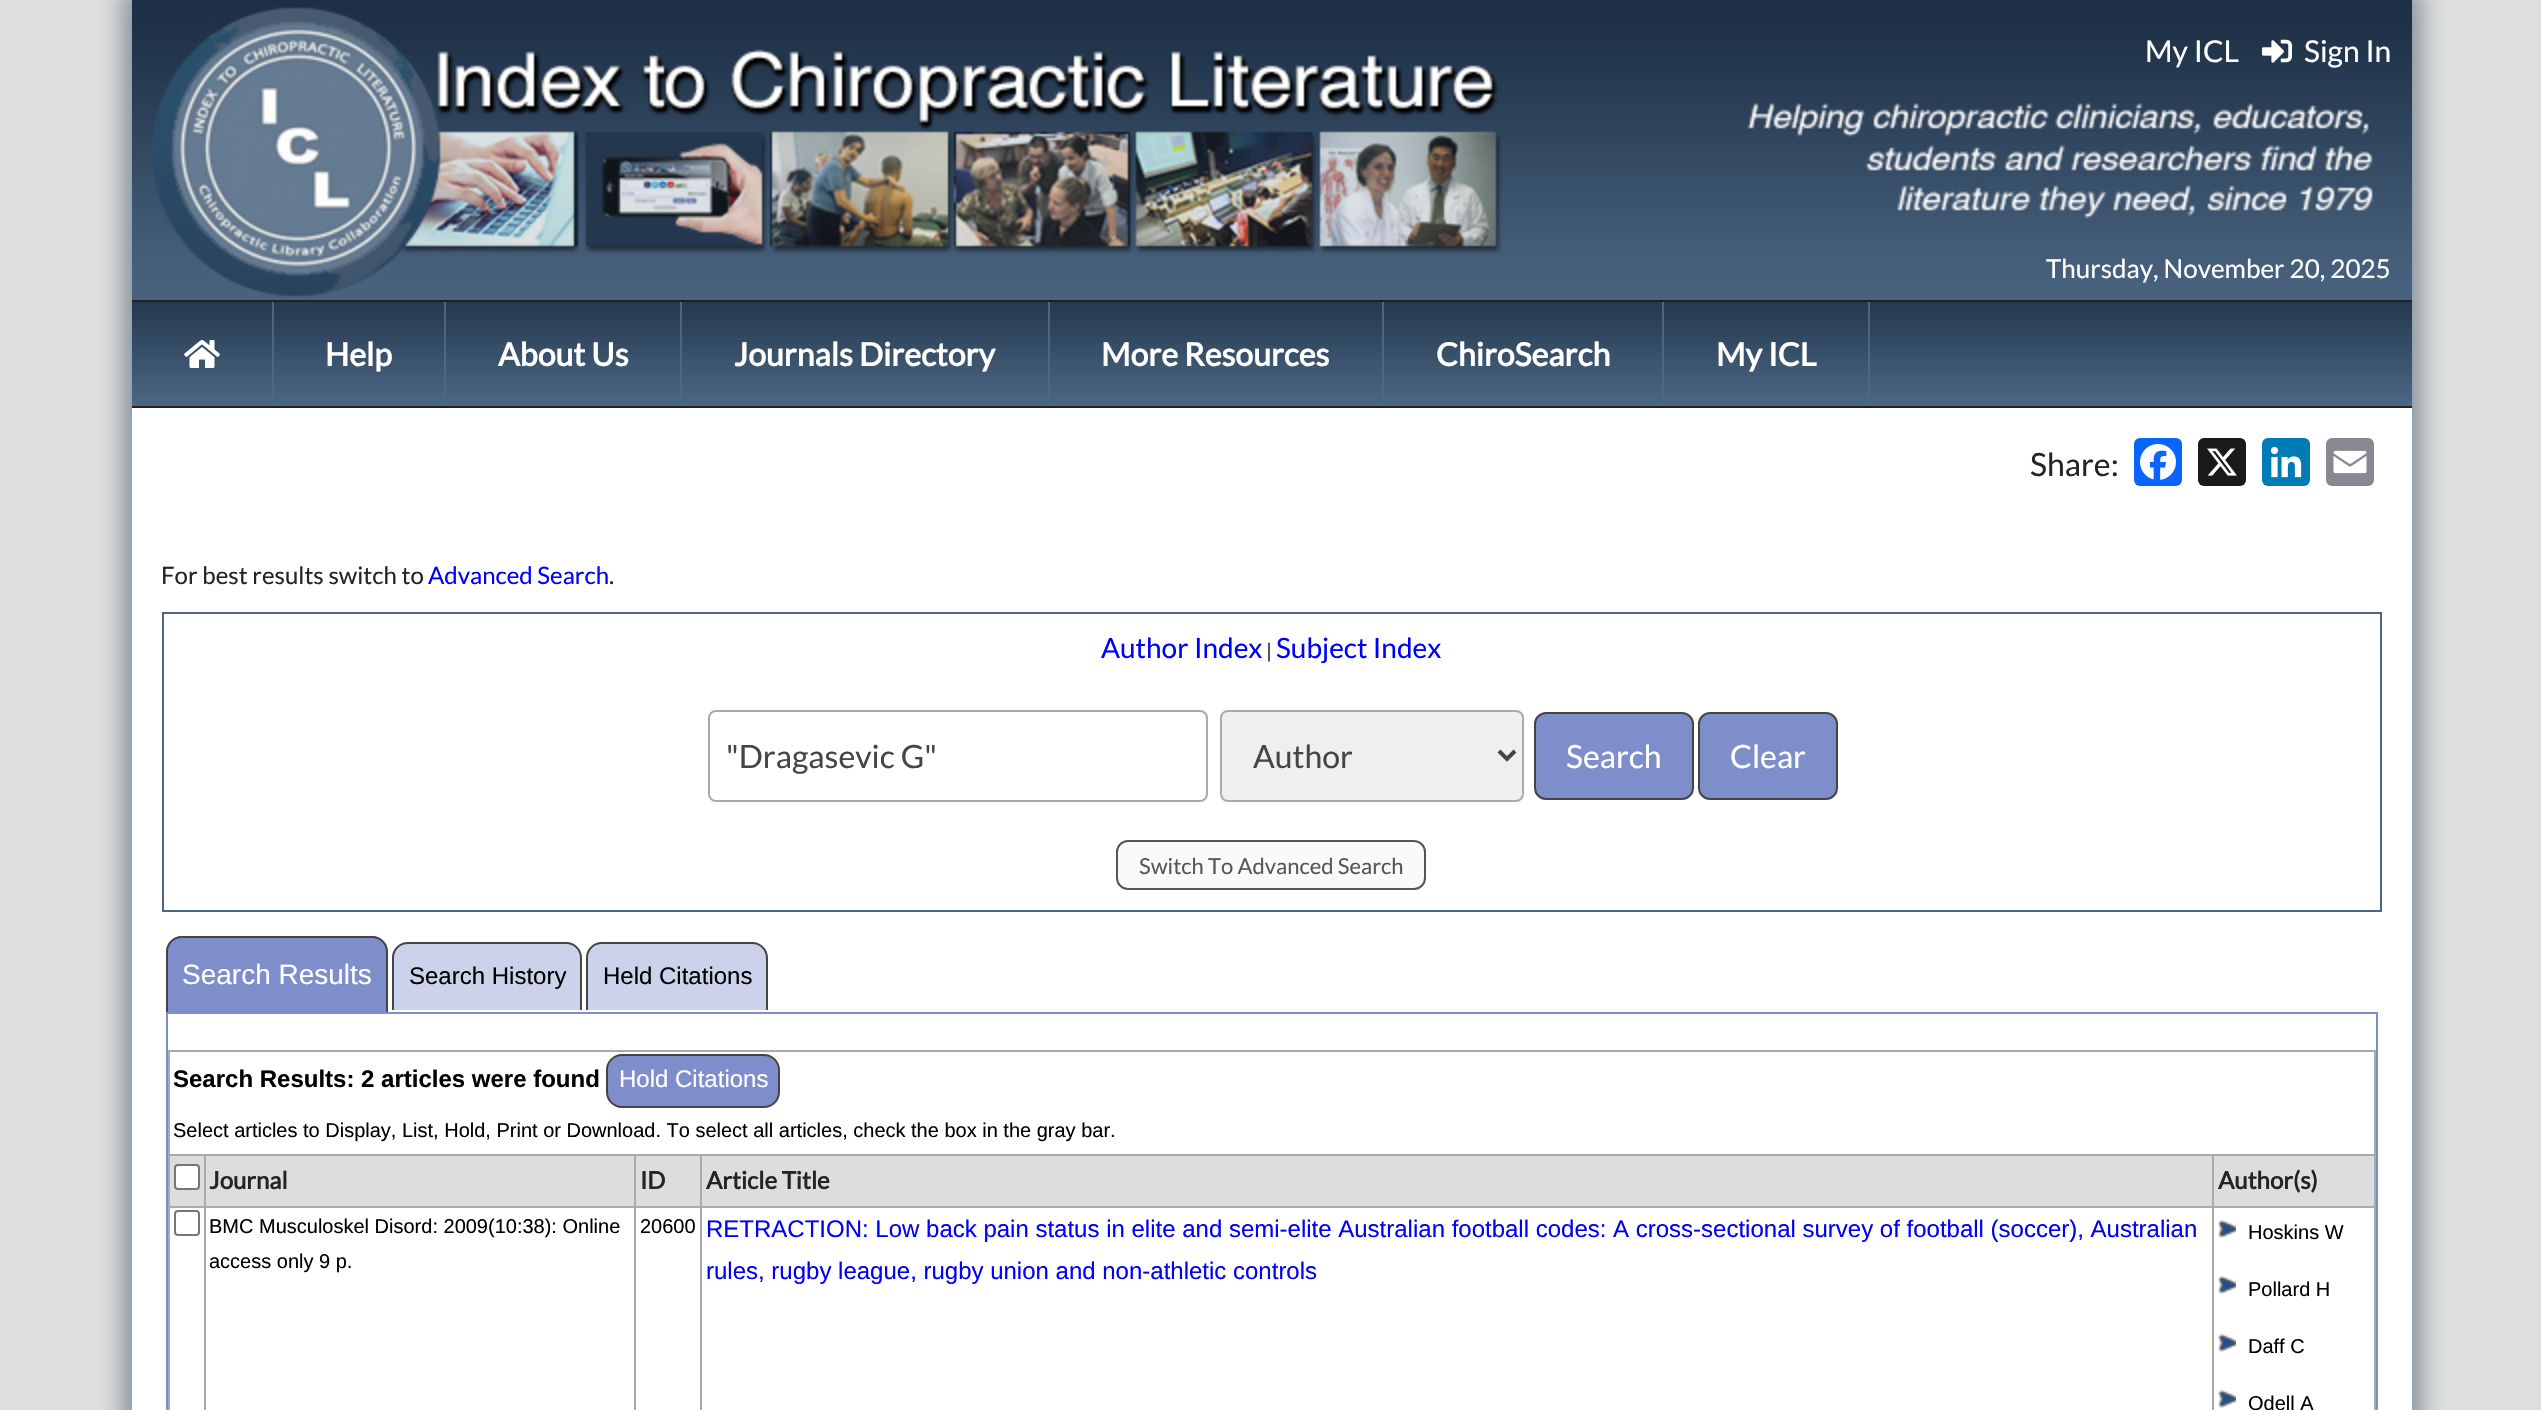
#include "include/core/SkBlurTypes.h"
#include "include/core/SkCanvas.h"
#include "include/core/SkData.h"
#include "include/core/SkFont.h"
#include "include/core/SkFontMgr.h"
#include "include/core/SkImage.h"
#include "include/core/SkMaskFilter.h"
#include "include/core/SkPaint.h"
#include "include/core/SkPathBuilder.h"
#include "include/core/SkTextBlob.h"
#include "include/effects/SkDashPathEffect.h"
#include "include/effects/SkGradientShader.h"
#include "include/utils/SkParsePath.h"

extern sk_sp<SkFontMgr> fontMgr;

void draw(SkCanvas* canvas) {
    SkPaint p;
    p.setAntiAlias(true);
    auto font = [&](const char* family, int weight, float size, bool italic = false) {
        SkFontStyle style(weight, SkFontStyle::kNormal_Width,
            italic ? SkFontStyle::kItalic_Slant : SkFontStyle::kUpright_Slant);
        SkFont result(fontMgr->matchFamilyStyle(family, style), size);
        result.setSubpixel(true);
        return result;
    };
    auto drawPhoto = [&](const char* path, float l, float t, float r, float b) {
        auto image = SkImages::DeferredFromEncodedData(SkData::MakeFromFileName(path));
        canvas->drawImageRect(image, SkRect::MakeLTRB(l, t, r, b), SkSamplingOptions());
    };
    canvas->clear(0xFFDDDEDE);
    p.setColor(0x78244059);
    p.setMaskFilter(SkMaskFilter::MakeBlur(kNormal_SkBlurStyle, 11));
    canvas->drawRect(SkRect::MakeLTRB(122, -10, 2422, 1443), p);
    p.setMaskFilter(nullptr);
    p.setColor(0xFFFFFFFF);
    canvas->drawRect(SkRect::MakeLTRB(132, 408, 2412, 1410), p);
    drawPhoto("media/1.png", 132, 0, 2412, 300);
    auto font1 = font("Lato", 400, 30);
    canvas->drawString("My ICL", 2145, 62, font1, p);
    drawPhoto("media/2.png", 2262, 39, 2292, 63);
    canvas->drawString("Sign In", 2304, 62, font1, p);
    auto font2 = font("Lato", 400, 26);
    canvas->drawString("Thursday, November 20, 2025", 2046, 278, font2, p);
    {
        const SkColor colors[] = {0xFF25394F, 0xFF4C6784};
        const float stops[] = {0, 1};
        const SkPoint ends[] = {{1272, 302}, {1272, 406}};
        p.setShader(SkGradientShader::MakeLinear(ends, colors, stops, 2, SkTileMode::kClamp));
        p.setAlpha(255);
    }
    canvas->drawRect(SkRect::MakeLTRB(132, 302, 2412, 406), p);
    p.setShader(nullptr);
    {
        const struct { float l, t, r, b; SkColor color; } items[] = {
            {132, 300, 2412, 302, 0xFF222222},
            {132, 406, 2412, 408, 0xFF222222},
            {272, 302, 274, 406, 0xFF4C6784},
        };
        for (auto [l, t, r, b, color] : items) {
            p.setColor(color);
            canvas->drawRect(SkRect::MakeLTRB(l, t, r, b), p);
        }
    }
    drawPhoto("media/3.png", 184, 340, 220, 368);
    canvas->drawRect(SkRect::MakeLTRB(444, 302, 446, 406), p);
    auto font3 = font("Lato", 700, 32);
    p.setColor(0xFFFFFFFF);
    canvas->drawString("Help", 325, 366, font3, p);
    p.setColor(0xFF4C6784);
    canvas->drawRect(SkRect::MakeLTRB(680, 302, 682, 406), p);
    p.setColor(0xFFFFFFFF);
    canvas->drawString("About Us", 498, 366, font3, p);
    p.setColor(0xFF4C6784);
    canvas->drawRect(SkRect::MakeLTRB(1048, 302, 1050, 406), p);
    p.setColor(0xFFFFFFFF);
    canvas->drawString("Journals Directory", 734, 366, font3, p);
    p.setColor(0xFF4C6784);
    canvas->drawRect(SkRect::MakeLTRB(1382, 302, 1384, 406), p);
    p.setColor(0xFFFFFFFF);
    canvas->drawString("More Resources", 1101, 366, font3, p);
    p.setColor(0xFF4C6784);
    canvas->drawRect(SkRect::MakeLTRB(1662, 302, 1664, 406), p);
    p.setColor(0xFFFFFFFF);
    canvas->drawString("ChiroSearch", 1436, 366, font3, p);
    p.setColor(0xFF4C6784);
    canvas->drawRect(SkRect::MakeLTRB(1868, 302, 1870, 406), p);
    p.setColor(0xFFFFFFFF);
    canvas->drawString("My ICL", 1716, 366, font3, p);
    auto font4 = font("Lato", 400, 32);
    p.setColor(0xFF212529);
    canvas->drawString("Share:", 2030, 476, font4, p);
    p.setColor(0xFF0866FF);
    canvas->drawRoundRect(SkRect::MakeLTRB(2134, 438, 2182, 486), 6, 6, p);
    drawPhoto("media/4.png", 2140, 444, 2176, 480);
    p.setColor(0xFF1A1A1A);
    canvas->drawRoundRect(SkRect::MakeLTRB(2198, 438, 2246, 486), 6, 6, p);
    drawPhoto("media/5.png", 2207, 448, 2237, 476);
    p.setColor(0xFF007BB5);
    canvas->drawRoundRect(SkRect::MakeLTRB(2262, 438, 2310, 486), 6, 6, p);
    drawPhoto("media/6.png", 2270, 446, 2302, 478);
    p.setColor(0xFF888990);
    canvas->drawRoundRect(SkRect::MakeLTRB(2326, 438, 2374, 486), 6, 6, p);
    drawPhoto("media/7.png", 2333, 450, 2367, 474);
    auto font5 = font("Lato", 400, 24);
    p.setColor(0xFF212529);
    canvas->drawString("For best results switch to", 161, 584, font5, p);
    p.setColor(0xFF0000FF);
    canvas->drawString("Advanced Search", 428, 584, font5, p);
    p.setColor(0xFF212529);
    canvas->drawString(".", 609, 584, font5, p);
    p.setStyle(SkPaint::kStroke_Style);
    p.setStrokeWidth(2);
    p.setColor(0xFF4D6683);
    canvas->drawRect(SkRect::MakeLTRB(163, 613, 2381, 911), p);
    auto font6 = font("Lato", 400, 28);
    p.setStyle(SkPaint::kFill_Style);
    p.setColor(0xFF0000FF);
    canvas->drawString("Author Index", 1101, 658, font6, p);
    auto font7 = font("Lato", 400, 20);
    p.setColor(0xFF212529);
    canvas->drawString("|", 1266, 658, font7, p);
    p.setColor(0xFF0000FF);
    canvas->drawString("Subject Index", 1276, 658, font6, p);
    p.setStyle(SkPaint::kStroke_Style);
    p.setColor(0xFFAAAAAA);
    canvas->drawRoundRect(SkRect::MakeLTRB(709, 711, 1207, 801), 7, 7, p);
    p.setStyle(SkPaint::kFill_Style);
    p.setColor(0xFF454545);
    canvas->drawString("\"Dragasevic G\"", 726, 768, font4, p);
    p.setColor(0xFFEFEFEF);
    canvas->drawRoundRect(SkRect::MakeLTRB(1221, 711, 1523, 801), 7, 7, p);
    p.setStyle(SkPaint::kStroke_Style);
    p.setColor(0xFFAAAAAA);
    canvas->drawRoundRect(SkRect::MakeLTRB(1221, 711, 1523, 801), 7, 7, p);
    p.setStrokeWidth(4);
    p.setColor(0xFF454545);
    canvas->drawPath(SkPathBuilder().moveTo(1499, 751).lineTo(1507, 759).lineTo(1515, 751).detach(), p);
    p.setStyle(SkPaint::kFill_Style);
    canvas->drawString("Author", 1253, 768, font4, p);
    p.setColor(0xFF7E8ECB);
    canvas->drawRoundRect(SkRect::MakeLTRB(1535, 713, 1693, 799), 11, 11, p);
    p.setStyle(SkPaint::kStroke_Style);
    p.setStrokeWidth(2);
    p.setColor(0xFF444444);
    canvas->drawRoundRect(SkRect::MakeLTRB(1535, 713, 1693, 799), 11, 11, p);
    p.setStyle(SkPaint::kFill_Style);
    p.setColor(0xFFFFFFFF);
    canvas->drawString("Search", 1566, 768, font4, p);
    p.setColor(0xFF7E8ECB);
    canvas->drawRoundRect(SkRect::MakeLTRB(1699, 713, 1837, 799), 11, 11, p);
    p.setStyle(SkPaint::kStroke_Style);
    p.setColor(0xFF444444);
    canvas->drawRoundRect(SkRect::MakeLTRB(1699, 713, 1837, 799), 11, 11, p);
    p.setStyle(SkPaint::kFill_Style);
    p.setColor(0xFFFFFFFF);
    canvas->drawString("Clear", 1730, 768, font4, p);
    p.setColor(0xFFFAFAFA);
    canvas->drawRoundRect(SkRect::MakeLTRB(1117, 841, 1425, 889), 11, 11, p);
    p.setStyle(SkPaint::kStroke_Style);
    p.setColor(0xFF565656);
    canvas->drawRoundRect(SkRect::MakeLTRB(1117, 841, 1425, 889), 11, 11, p);
    auto font8 = font("Lato", 400, 22);
    p.setStyle(SkPaint::kFill_Style);
    canvas->drawString("Switch To Advanced Search", 1139, 874, font8, p);
    p.setColor(0xFF7E8ECB);
    canvas->drawPath(SkPathBuilder().moveTo(182, 936).lineTo(372, 936).cubicTo(381, 936, 388, 943, 388, 952).lineTo(388, 1012).lineTo(166, 1012).lineTo(166, 952).cubicTo(166, 943, 173, 936, 182, 936).close().detach(), p);
    p.setColor(0xFF444444);
    canvas->drawPath(SkPathBuilder(SkPathFillType::kEvenOdd).moveTo(182, 936).lineTo(372, 936).cubicTo(381, 936, 388, 943, 388, 952).lineTo(388, 1012).lineTo(166, 1012).lineTo(166, 952).cubicTo(166, 943, 173, 936, 182, 936).close().moveTo(182, 938).lineTo(372, 938).cubicTo(380, 938, 386, 944, 386, 952).lineTo(386, 1012).lineTo(168, 1012).lineTo(168, 952).cubicTo(168, 944, 174, 938, 182, 938).close().detach(), p);
    auto font9 = font("Liberation Sans", 400, 28);
    p.setColor(0xFFFFFFFF);
    canvas->drawString("Search Results", 182, 984, font9, p);
    p.setColor(0xFFCBD2EA);
    canvas->drawPath(SkPathBuilder().moveTo(408, 942).lineTo(566, 942).cubicTo(575, 942, 582, 949, 582, 958).lineTo(582, 1010).lineTo(392, 1010).lineTo(392, 958).cubicTo(392, 949, 399, 942, 408, 942).close().detach(), p);
    p.setColor(0xFF444444);
    canvas->drawPath(SkPathBuilder(SkPathFillType::kEvenOdd).moveTo(408, 942).lineTo(566, 942).cubicTo(575, 942, 582, 949, 582, 958).lineTo(582, 1010).lineTo(392, 1010).lineTo(392, 958).cubicTo(392, 949, 399, 942, 408, 942).close().moveTo(408, 944).lineTo(566, 944).cubicTo(574, 944, 580, 950, 580, 958).lineTo(580, 1010).lineTo(394, 1010).lineTo(394, 958).cubicTo(394, 950, 400, 944, 408, 944).close().detach(), p);
    auto font10 = font("Liberation Sans", 400, 24);
    p.setColor(0xFF000000);
    canvas->drawString("Search History", 409, 984, font10, p);
    p.setColor(0xFFCBD2EA);
    canvas->drawPath(SkPathBuilder().moveTo(602, 942).lineTo(752, 942).cubicTo(761, 942, 768, 949, 768, 958).lineTo(768, 1010).lineTo(586, 1010).lineTo(586, 958).cubicTo(586, 949, 593, 942, 602, 942).close().detach(), p);
    p.setColor(0xFF444444);
    canvas->drawPath(SkPathBuilder(SkPathFillType::kEvenOdd).moveTo(602, 942).lineTo(752, 942).cubicTo(761, 942, 768, 949, 768, 958).lineTo(768, 1010).lineTo(586, 1010).lineTo(586, 958).cubicTo(586, 949, 593, 942, 602, 942).close().moveTo(602, 944).lineTo(752, 944).cubicTo(760, 944, 766, 950, 766, 958).lineTo(766, 1010).lineTo(588, 1010).lineTo(588, 958).cubicTo(588, 950, 594, 944, 602, 944).close().detach(), p);
    p.setColor(0xFF000000);
    canvas->drawString("Held Citations", 603, 984, font10, p);
    {
        const struct { float l, t, r, b; SkColor color; } items[] = {
            {166, 1012, 2378, 1014, 0xFF7E8ECB},
            {2376, 1012, 2378, 1410, 0xFF7E8ECB},
            {166, 1012, 168, 1410, 0xFF7E8ECB},
            {168, 1050, 2376, 1052, 0xFFAAAAAA},
            {2212, 1154, 2376, 1156, 0xFFAAAAAA},
            {2212, 1206, 2376, 1208, 0xFFAAAAAA},
            {2374, 1206, 2376, 1410, 0xFFAAAAAA},
            {2374, 1154, 2376, 1208, 0xFFAAAAAA},
            {2374, 1050, 2376, 1156, 0xFFAAAAAA},
            {170, 1156, 2374, 1206, 0xFFDDDDDD},
            {2212, 1206, 2214, 1410, 0xFFAAAAAA},
            {700, 1206, 2214, 1208, 0xFFAAAAAA},
            {2212, 1154, 2214, 1208, 0xFFAAAAAA},
            {700, 1154, 2214, 1156, 0xFFAAAAAA},
            {700, 1206, 702, 1410, 0xFFAAAAAA},
            {634, 1206, 702, 1208, 0xFFAAAAAA},
            {700, 1154, 702, 1208, 0xFFAAAAAA},
            {634, 1154, 702, 1156, 0xFFAAAAAA},
            {634, 1206, 636, 1410, 0xFFAAAAAA},
            {204, 1206, 636, 1208, 0xFFAAAAAA},
            {634, 1154, 636, 1208, 0xFFAAAAAA},
            {204, 1154, 636, 1156, 0xFFAAAAAA},
            {204, 1206, 206, 1410, 0xFFAAAAAA},
            {168, 1206, 206, 1208, 0xFFAAAAAA},
            {204, 1154, 206, 1208, 0xFFAAAAAA},
            {168, 1154, 206, 1156, 0xFFAAAAAA},
            {168, 1206, 170, 1410, 0xFFAAAAAA},
            {168, 1154, 170, 1208, 0xFFAAAAAA},
            {168, 1050, 170, 1156, 0xFFAAAAAA},
        };
        for (auto [l, t, r, b, color] : items) {
            p.setColor(color);
            canvas->drawRect(SkRect::MakeLTRB(l, t, r, b), p);
        }
    }
    auto font11 = font("Liberation Sans", 700, 24);
    p.setColor(0xFF000000);
    canvas->drawString("Search Results: 2 articles were found", 173, 1087, font11, p);
    p.setColor(0xFF7E8ECB);
    canvas->drawRoundRect(SkRect::MakeLTRB(607, 1055, 779, 1107), 15, 15, p);
    p.setStyle(SkPaint::kStroke_Style);
    p.setColor(0xFF444444);
    canvas->drawRoundRect(SkRect::MakeLTRB(607, 1055, 779, 1107), 15, 15, p);
    p.setStyle(SkPaint::kFill_Style);
    p.setColor(0xFFFFFFFF);
    canvas->drawString("Hold Citations", 619, 1087, font10, p);
    auto font12 = font("Liberation Sans", 400, 20);
    p.setColor(0xFF000000);
    canvas->drawString("Select articles to Display, List, Hold, Print or Download. To select all articles, check the box in the gray bar.", 173, 1137, font12, p);
    p.setColor(0xFFFFFFFF);
    canvas->drawRoundRect(SkRect::MakeLTRB(175, 1165, 199, 1189), 3, 3, p);
    p.setStyle(SkPaint::kStroke_Style);
    p.setColor(0xFF767676);
    canvas->drawRoundRect(SkRect::MakeLTRB(175, 1165, 199, 1189), 3, 3, p);
    auto font13 = font("Lato", 700, 24);
    p.setStyle(SkPaint::kFill_Style);
    p.setColor(0xFF212529);
    {
        const struct { const char* s; float x, y; } items[] = {
            {"Journal", 209, 1189},
            {"ID", 640, 1189},
            {"Article Title", 706, 1189},
            {"Author(s)", 2218, 1189},
        };
        for (auto [s, x, y] : items) {
            canvas->drawString(s, x, y, font13, p);
        }
    }
    p.setStyle(SkPaint::kStroke_Style);
    p.setColor(0xFF767676);
    canvas->drawRoundRect(SkRect::MakeLTRB(175, 1211, 199, 1235), 3, 3, p);
    p.setStyle(SkPaint::kFill_Style);
    p.setColor(0xFF000000);
    {
        const struct { const char* s; float x, y; } items[] = {
            {"BMC Musculoskel Disord: 2009(10:38): Online", 209, 1233},
            {"access only 9 p.", 209, 1268},
            {"20600", 640, 1233},
        };
        for (auto [s, x, y] : items) {
            canvas->drawString(s, x, y, font12, p);
        }
    }
    p.setColor(0xFF0000FF);
    canvas->drawString("RETRACTION: Low back pain status in elite and semi-elite Australian football codes: A cross-sectional survey of football (soccer), Australian", 706, 1237, font10, p);
    canvas->drawString("rules, rugby league, rugby union and non-athletic controls", 706, 1279, font10, p);
    drawPhoto("media/8.png", 2218, 1219, 2236, 1238);
    p.setColor(0xFF000000);
    canvas->drawString("Hoskins W", 2248, 1239, font12, p);
    drawPhoto("media/8.png", 2218, 1275, 2236, 1294);
    canvas->drawString("Pollard H", 2248, 1296, font12, p);
    drawPhoto("media/8.png", 2218, 1333, 2236, 1352);
    canvas->drawString("Daff C", 2248, 1353, font12, p);
    drawPhoto("media/8.png", 2218, 1389, 2236, 1408);
    canvas->drawString("Odell A", 2248, 1410, font12, p);
}
